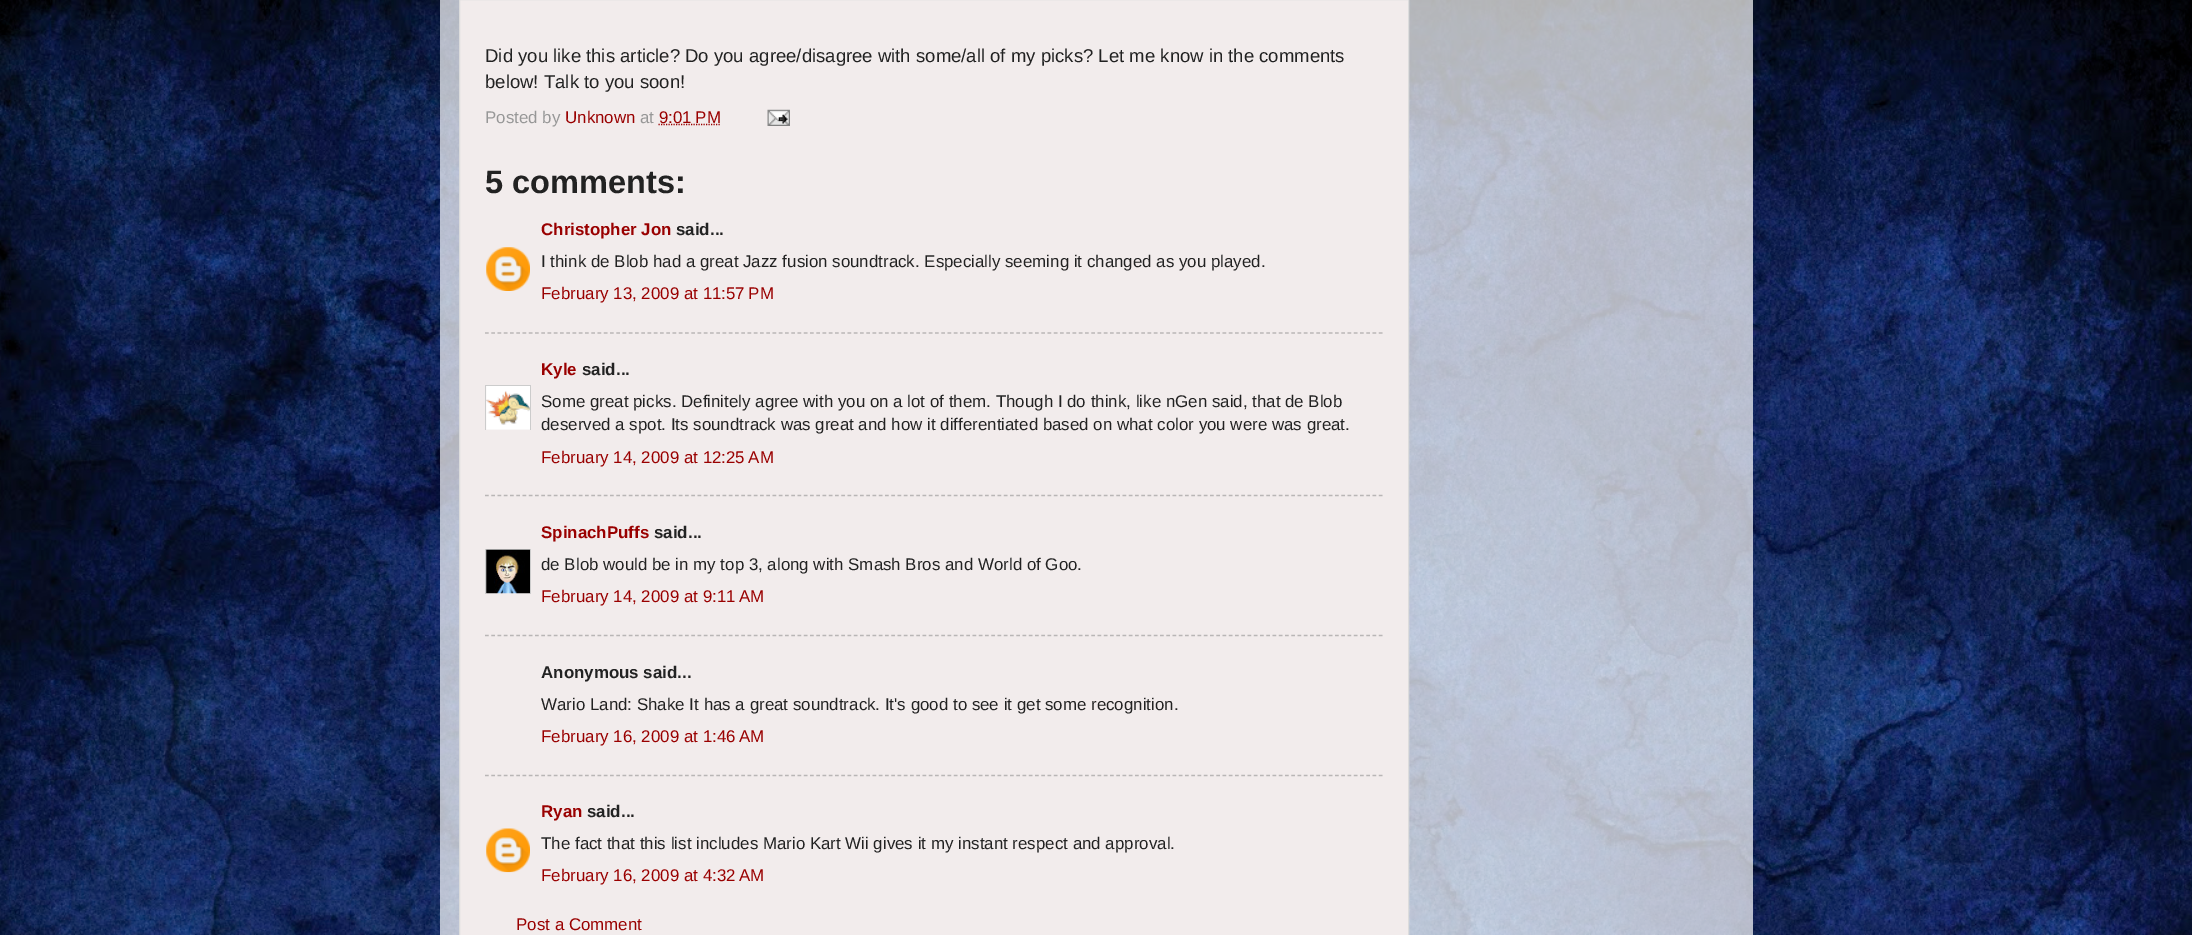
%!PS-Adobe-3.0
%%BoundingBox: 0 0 2192 935
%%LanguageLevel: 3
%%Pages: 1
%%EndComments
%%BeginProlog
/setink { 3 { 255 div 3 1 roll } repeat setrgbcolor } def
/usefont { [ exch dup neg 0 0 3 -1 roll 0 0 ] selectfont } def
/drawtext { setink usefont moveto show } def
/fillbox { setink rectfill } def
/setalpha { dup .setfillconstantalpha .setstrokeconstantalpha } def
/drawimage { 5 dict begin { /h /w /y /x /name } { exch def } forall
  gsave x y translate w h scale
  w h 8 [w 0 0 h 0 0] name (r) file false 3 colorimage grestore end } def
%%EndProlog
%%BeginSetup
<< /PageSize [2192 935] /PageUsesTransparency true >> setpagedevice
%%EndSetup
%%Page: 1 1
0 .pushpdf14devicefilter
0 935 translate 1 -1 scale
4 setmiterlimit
0 0 2192 935 255 255 255 fillbox
(assets/img1.rgb) 0 0 2192 935 drawimage
0.7 setalpha
440 0 1313 935 255 255 255 fillbox
1 setalpha
242 236 236 setink
459.5 -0.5 moveto 1408.5 -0.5 lineto 1408.5 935.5 lineto 459.5 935.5 lineto closepath gsave fill grestore
220 220 220 setink
stroke
(Did you like this article? Do you agree/disagree with some/all of my picks? Let me know in the comments) 485 62 /LiberationSans-Regular 18.55 34 34 34 drawtext
(below! Talk to you soon!) 485 88 /LiberationSans-Regular 18.55 34 34 34 drawtext
(Posted by) 485 123 /LiberationSans-Regular 16.9 151 151 151 drawtext
(Unknown) 565 123 /LiberationSans-Regular 16.9 153 0 0 drawtext
(at) 640 123 /LiberationSans-Regular 16.9 151 151 151 drawtext
153 0 0 setink
1.2 setlinewidth
[1.25 1.25] 0 setdash
658.5 124.5 moveto 720 124.5 lineto stroke
(9:01 PM) 659 123 /LiberationSans-Regular 16.9 153 0 0 drawtext
(assets/img2.rgb) 767 109 23 17 drawimage
(5 comments:) 485 193 /LiberationSans-Bold 32.5 34 34 34 drawtext
(Christopher Jon) 541 235 /LiberationSans-Bold 16.9 153 0 0 drawtext
(said...) 676 235 /LiberationSans-Bold 16.9 34 34 34 drawtext
(assets/img3.rgb) 486 247 44 44 drawimage
(I think de Blob had a great Jazz fusion soundtrack. Especially seeming it changed as you played.) 541 267 /LiberationSans-Regular 16.9 34 34 34 drawtext
(February 13, 2009 at 11:57 PM) 541 299 /LiberationSans-Regular 16.9 153 0 0 drawtext
185 182 182 setink
[3.75 2.5] 0 setdash
485 333 moveto 1382.5 333 lineto stroke
(Kyle) 541 375 /LiberationSans-Bold 16.9 153 0 0 drawtext
(said...) 582 375 /LiberationSans-Bold 16.9 34 34 34 drawtext
gsave
485 385 46 45 rectclip
204 204 204 setink
1 setlinewidth
[] 0 setdash
485.5 385.5 45 45 rectstroke
grestore
(assets/img4.rgb) 486 386 44 44 drawimage
(Some great picks. Definitely agree with you on a lot of them. Though I do think, like nGen said, that de Blob) 541 407 /LiberationSans-Regular 16.9 34 34 34 drawtext
(deserved a spot. Its soundtrack was great and how it differentiated based on what color you were was great.) 541 430 /LiberationSans-Regular 16.9 34 34 34 drawtext
(February 14, 2009 at 12:25 AM) 541 463 /LiberationSans-Regular 16.9 153 0 0 drawtext
185 182 182 setink
485 495.5 moveto 1382.5 495.5 lineto stroke
(SpinachPuffs) 541 538 /LiberationSans-Bold 16.9 153 0 0 drawtext
(said...) 654 538 /LiberationSans-Bold 16.9 34 34 34 drawtext
gsave
485 549 46 45 rectclip
204 204 204 setink
1 setlinewidth
[] 0 setdash
485.5 549.5 45 45 rectstroke
grestore
(assets/img5.rgb) 486 549 44 45 drawimage
(de Blob would be in my top 3, along with Smash Bros and World of Goo.) 541 570 /LiberationSans-Regular 16.9 34 34 34 drawtext
(February 14, 2009 at 9:11 AM) 541 602 /LiberationSans-Regular 16.9 153 0 0 drawtext
185 182 182 setink
485 635.5 moveto 1382.5 635.5 lineto stroke
(Anonymous said...) 541 678 /LiberationSans-Bold 16.9 34 34 34 drawtext
(Wario Land: Shake It has a great soundtrack. It's good to see it get some recognition.) 541 710 /LiberationSans-Regular 16.9 34 34 34 drawtext
(February 16, 2009 at 1:46 AM) 541 742 /LiberationSans-Regular 16.9 153 0 0 drawtext
185 182 182 setink
485 775.5 moveto 1382.5 775.5 lineto stroke
(Ryan) 541 817 /LiberationSans-Bold 16.9 153 0 0 drawtext
(said...) 587 817 /LiberationSans-Bold 16.9 34 34 34 drawtext
(assets/img6.rgb) 486 828 44 45 drawimage
(The fact that this list includes Mario Kart Wii gives it my instant respect and approval.) 541 849 /LiberationSans-Regular 16.9 34 34 34 drawtext
(February 16, 2009 at 4:32 AM) 541 881 /LiberationSans-Regular 16.9 153 0 0 drawtext
(Post a Comment) 516 930 /LiberationSans-Regular 16.9 153 0 0 drawtext
.poppdf14devicefilter showpage
%%EOF
